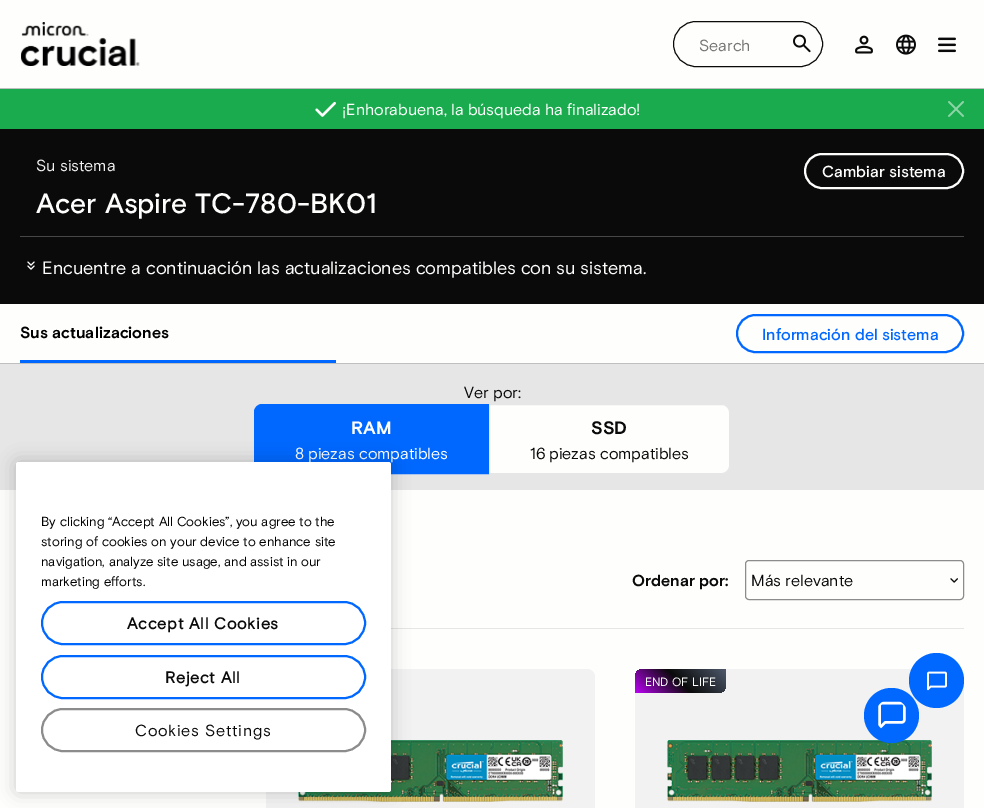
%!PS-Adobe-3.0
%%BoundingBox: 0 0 984 808
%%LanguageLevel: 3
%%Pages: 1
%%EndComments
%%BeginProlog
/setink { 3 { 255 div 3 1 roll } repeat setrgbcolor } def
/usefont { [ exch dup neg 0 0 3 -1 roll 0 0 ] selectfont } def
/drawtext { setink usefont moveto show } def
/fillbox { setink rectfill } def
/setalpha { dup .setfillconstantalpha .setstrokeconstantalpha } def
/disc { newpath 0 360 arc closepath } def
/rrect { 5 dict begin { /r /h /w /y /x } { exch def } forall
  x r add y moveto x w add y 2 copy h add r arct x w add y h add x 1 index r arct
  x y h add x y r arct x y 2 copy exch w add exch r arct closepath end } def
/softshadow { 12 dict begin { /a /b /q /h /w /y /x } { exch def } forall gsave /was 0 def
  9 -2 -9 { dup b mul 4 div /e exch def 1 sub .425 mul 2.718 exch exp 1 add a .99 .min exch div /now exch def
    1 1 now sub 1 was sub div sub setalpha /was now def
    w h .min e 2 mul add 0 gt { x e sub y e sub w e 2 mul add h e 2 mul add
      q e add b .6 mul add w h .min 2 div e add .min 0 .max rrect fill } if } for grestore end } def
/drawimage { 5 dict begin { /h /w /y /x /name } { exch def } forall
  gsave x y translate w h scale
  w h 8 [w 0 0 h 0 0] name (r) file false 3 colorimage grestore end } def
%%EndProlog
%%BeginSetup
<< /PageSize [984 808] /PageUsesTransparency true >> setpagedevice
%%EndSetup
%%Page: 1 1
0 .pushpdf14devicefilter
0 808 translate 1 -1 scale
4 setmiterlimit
0 0 984 808 254 254 253 fillbox
0 88 984 1 191 191 191 fillbox
(assets/img1.rgb) 21 22 119 44 drawimage
10 10 10 setink
673.5 21.5 149 45 22.5 rrect stroke
(Search) 699 51 /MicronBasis-Regular 16 117 117 117 drawtext
(assets/img2.rgb) 793 34 18 19 drawimage
(assets/img3.rgb) 855 35 18 19 drawimage
(assets/img4.rgb) 896 34 20 21 drawimage
(assets/img5.rgb) 938 37 18 16 drawimage
0 89 984 40 26 171 79 fillbox
(assets/img6.rgb) 315 101 21 16 drawimage
(¡Enhorabuena, la búsqueda ha finalizado!) 342 115 /MicronBasis-Regular 16 254 254 253 drawtext
(assets/img7.rgb) 948 101 16 16 drawimage
0 129 984 175 10 10 10 fillbox
(Su sistema) 36 171 /MicronBasis-Regular 16 242 242 242 drawtext
(Acer Aspire TC-780-BK01) 36 213 /MicronBasis-Medium 28 254 254 253 drawtext
2 setlinewidth
805 154 158 34 17 rrect stroke
(Cambiar sistema) 822 177 /MicronBasis-Medium 16 254 254 253 drawtext
20 236 944 1 71 71 71 fillbox
(assets/img8.rgb) 27 261 8 9 drawimage
(Encuentre a continuación las actualizaciones compatibles con su sistema.) 42 274 /MicronBasis-Regular 18 254 254 253 drawtext
0 363 984 1 191 191 191 fillbox
20 360 316 3 0 104 255 fillbox
(Sus actualizaciones) 20 338 /MicronBasis-Bold 16 0 0 0 drawtext
0 104 255 setink
737 315 226 37 18.5 rrect stroke
(Información del sistema) 762 340 /MicronBasis-Medium 16 0 104 255 drawtext
0 364 984 126 230 230 230 fillbox
(Ver por:) 464 398 /MicronBasis-Regular 16 10 10 10 drawtext
0 104 255 setink
262 404.5 moveto 488.5 404.5 lineto 488.5 473.5 lineto 262 473.5 lineto 258 473.5 254.5 470 254.5 466 curveto 254.5 412 lineto 254.5 408 258 404.5 262 404.5 curveto closepath gsave fill grestore
1 setlinewidth
stroke
(RAM) 351 434 /MicronBasis-Bold 18 254 254 253 drawtext
(8) 295 459 /MicronBasis-Regular 16 254 254 253 drawtext
(piezas compatibles) 308 459 /MicronBasis-Regular 16 254 254 253 drawtext
489.5 404.5 moveto 722 404.5 lineto 726 404.5 729.5 408 729.5 412 curveto 729.5 466 lineto 729.5 470 726 473.5 722 473.5 curveto 489.5 473.5 lineto closepath gsave fill grestore
230 230 230 setink
stroke
(SSD) 591 434 /MicronBasis-Bold 18 10 10 10 drawtext
(16) 530 459 /MicronBasis-Regular 16 10 10 10 drawtext
(piezas compatibles) 549 459 /MicronBasis-Regular 16 10 10 10 drawtext
391 628 573 1 230 230 230 fillbox
(Ordenar por:) 632 586 /MicronBasis-Bold 16 10 10 10 drawtext
140 140 140 setink
745.5 560.5 218 39 3.5 rrect stroke
(Más relevante) 751 586 /MicronBasis-Regular 16 10 10 10 drawtext
(assets/img9.rgb) 950 578 8 5 drawimage
242 242 242 setink
266 669 329 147 8 rrect fill
(assets/img10.rgb) 298 740 265 62 drawimage
635 669 329 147 8 rrect fill
gsave 643 669 moveto 726 669 lineto 726 685 lineto 726 689.5 722.5 693 718 693 curveto 635 693 lineto 635 677 lineto 635 672.5 638.5 669 643 669 curveto closepath clip newpath
<< /ShadingType 2 /ColorSpace /DeviceRGB /Coords [709 652 652 710] /Extend [true true] /Function << /FunctionType 3 /Domain [0 1] /Functions [<< /FunctionType 2 /Domain [0 1] /C0 [0.31 0.353 0.424] /C1 [0.039 0.039 0.039] /N 1 >> << /FunctionType 2 /Domain [0 1] /C0 [0.039 0.039 0.039] /C1 [0.741 0.012 0.969] /N 1 >>] /Bounds [0.51] /Encode [0 1 0 1] >> >> shfill grestore
(END OF LIFE) 645 686 /MicronBasis-Regular 12 254 254 253 drawtext
(assets/img10.rgb) 667 740 265 62 drawimage
(assets/img12.rgb) 916 661 2 2 drawimage
0 104 255 setink
936.5 680.5 27.5 disc fill
(assets/img11.rgb) 927 671 20 20 drawimage
891.5 715.5 27.5 disc fill
(assets/img13.rgb) 878 701 28 28 drawimage
0 0 0 setink
16 462 375 330 2.5 9 0.2 softshadow
255 255 255 setink
16 462 375 330 2.5 rrect fill
(By clicking “Accept All Cookies”, you agree to the) 41 526 /MicronBasis-Regular 13.1 0 0 0 drawtext
(storing of cookies on your device to enhance site) 41 546 /MicronBasis-Regular 13.1 0 0 0 drawtext
(navigation, analyze site usage, and assist in our) 41 566 /MicronBasis-Regular 13.1 0 0 0 drawtext
(marketing efforts.) 41 586 /MicronBasis-Regular 13.1 0 0 0 drawtext
0 104 255 setink
2 setlinewidth
42 602 323 42 21 rrect stroke
/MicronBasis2-Bold 16 usefont
10 10 10 setink
127 629 moveto 0.75 0 (Accept All Cookies) ashow
0 104 255 setink
42 656 323 42 21 rrect stroke
10 10 10 setink
165 683 moveto 0.75 0 (Reject All) ashow
140 140 140 setink
42 709 323 42 21 rrect stroke
/MicronBasis-Regular 16 usefont
10 10 10 setink
135 736 moveto 0.75 0 (Cookies Settings) ashow
.poppdf14devicefilter showpage
%%EOF
